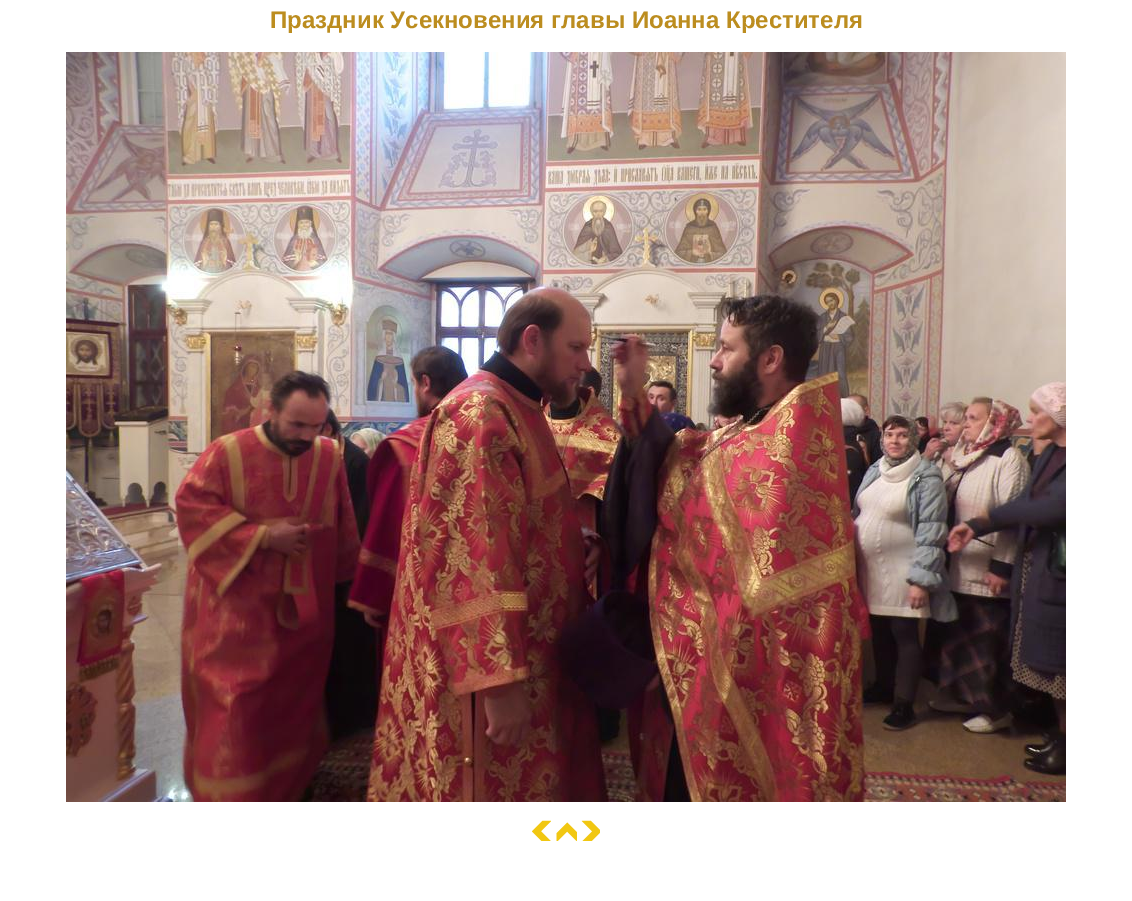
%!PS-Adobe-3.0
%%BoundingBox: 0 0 1132 901
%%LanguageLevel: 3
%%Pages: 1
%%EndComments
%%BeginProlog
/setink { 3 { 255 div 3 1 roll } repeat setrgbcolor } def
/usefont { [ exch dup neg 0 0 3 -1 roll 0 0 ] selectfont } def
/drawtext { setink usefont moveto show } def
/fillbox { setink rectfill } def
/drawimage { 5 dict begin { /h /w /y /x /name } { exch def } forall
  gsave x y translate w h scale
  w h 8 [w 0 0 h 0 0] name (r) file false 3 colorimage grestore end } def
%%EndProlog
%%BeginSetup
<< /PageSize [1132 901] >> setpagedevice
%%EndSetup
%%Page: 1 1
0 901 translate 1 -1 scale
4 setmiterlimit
0 0 1132 901 255 255 255 fillbox
(Праздник Усекновения главы Иоанна Крестителя) 270 28 /LiberationSans-Bold 24 188 141 31 drawtext
(assets/img1.rgb) 66 52 1000 750 drawimage
(assets/img2.rgb) 532 820 19 21 drawimage
(assets/img3.rgb) 556 822 21 19 drawimage
(assets/img4.rgb) 581 820 19 21 drawimage
showpage
%%EOF
